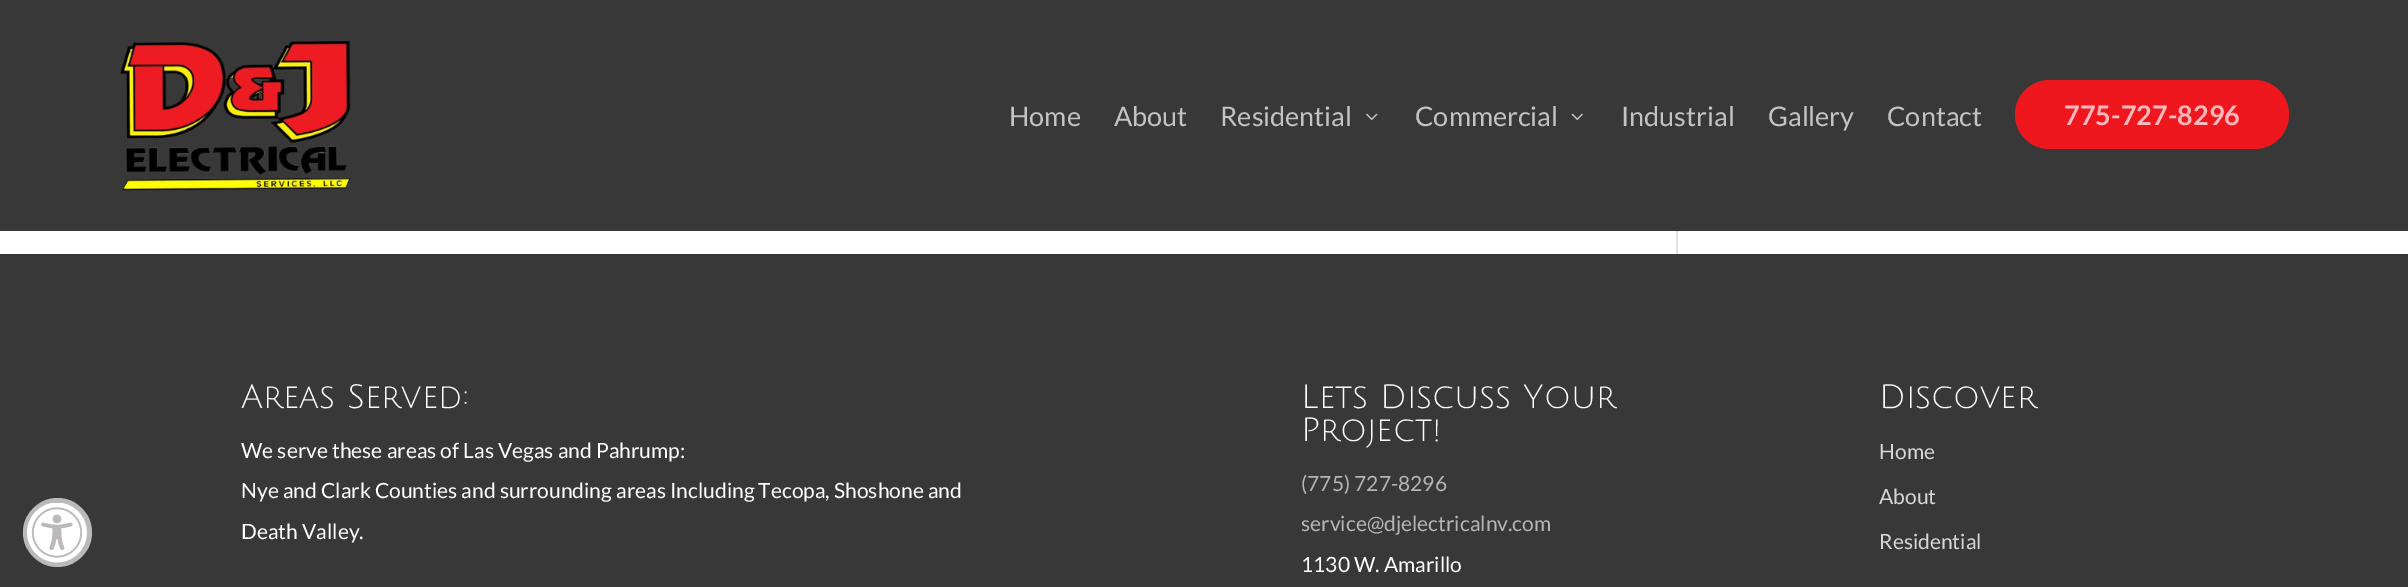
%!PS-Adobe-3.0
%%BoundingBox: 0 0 2408 587
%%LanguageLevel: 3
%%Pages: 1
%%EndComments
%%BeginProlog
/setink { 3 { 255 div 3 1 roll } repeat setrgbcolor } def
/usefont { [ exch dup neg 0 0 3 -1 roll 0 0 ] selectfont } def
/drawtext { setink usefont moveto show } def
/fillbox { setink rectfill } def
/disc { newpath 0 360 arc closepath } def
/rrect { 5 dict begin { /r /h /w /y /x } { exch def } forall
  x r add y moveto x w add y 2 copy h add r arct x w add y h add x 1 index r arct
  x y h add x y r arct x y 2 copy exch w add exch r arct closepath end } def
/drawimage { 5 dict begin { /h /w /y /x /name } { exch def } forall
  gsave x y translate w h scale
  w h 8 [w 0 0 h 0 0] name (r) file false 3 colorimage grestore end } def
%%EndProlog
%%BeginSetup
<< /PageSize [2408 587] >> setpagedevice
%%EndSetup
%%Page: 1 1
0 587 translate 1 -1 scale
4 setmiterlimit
0 0 2408 587 255 255 255 fillbox
0 254 2408 333 56 56 56 fillbox
187 185 185 setink
57.5 532.5 34.5 disc fill
(assets/img1.rgb) 27 503 60 60 drawimage
0 0 2408 231 56 56 56 fillbox
(assets/img2.rgb) 120 41 231 150 drawimage
(Home) 1009 126 /Lato-Regular 27 195 195 195 drawtext
(About) 1114 126 /Lato-Regular 27 195 195 195 drawtext
(Residential) 1220 126 /Lato-Regular 27 195 195 195 drawtext
(assets/img3.rgb) 1366 113 12 7 drawimage
(Commercial) 1415 126 /Lato-Regular 27 195 195 195 drawtext
(assets/img4.rgb) 1571 113 12 7 drawimage
(Industrial) 1621 126 /Lato-Regular 27 195 195 195 drawtext
(Gallery) 1768 126 /Lato-Regular 27 195 195 195 drawtext
(Contact) 1887 126 /Lato-Regular 27 195 195 195 drawtext
239 23 30 setink
2015 80 274 69 34.5 rrect fill
(775-727-8296) 2064 125 /Lato-Bold 27 250 185 188 drawtext
1676 231 2 23 226 226 226 fillbox
(Areas Served:) 241 408 /JuliusSansOne-Regular 33 253 252 249 drawtext
(We serve these areas of Las Vegas and Pahrump:) 241 458 /Lato-Regular 21 255 255 255 drawtext
(Nye and Clark Counties and surrounding areas Including Tecopa, Shoshone and) 241 498 /Lato-Regular 21 255 255 255 drawtext
(Death Valley.) 241 539 /Lato-Regular 21 255 255 255 drawtext
(Lets Discuss Your) 1301 408 /JuliusSansOne-Regular 33 253 252 249 drawtext
(Project!) 1301 441 /JuliusSansOne-Regular 33 253 252 249 drawtext
(\(775\) 727-8296) 1301 491 /Lato-Regular 21 182 182 182 drawtext
(service@djelectricalnv.com) 1301 531 /Lato-Regular 21 182 182 182 drawtext
(1130 W. Amarillo) 1301 572 /Lato-Regular 21 255 255 255 drawtext
(Discover) 1879 408 /JuliusSansOne-Regular 33 253 252 249 drawtext
(Home) 1879 459 /Lato-Regular 21 215 215 215 drawtext
(About) 1879 504 /Lato-Regular 21 215 215 215 drawtext
(Residential) 1879 549 /Lato-Regular 21 215 215 215 drawtext
showpage
%%EOF
